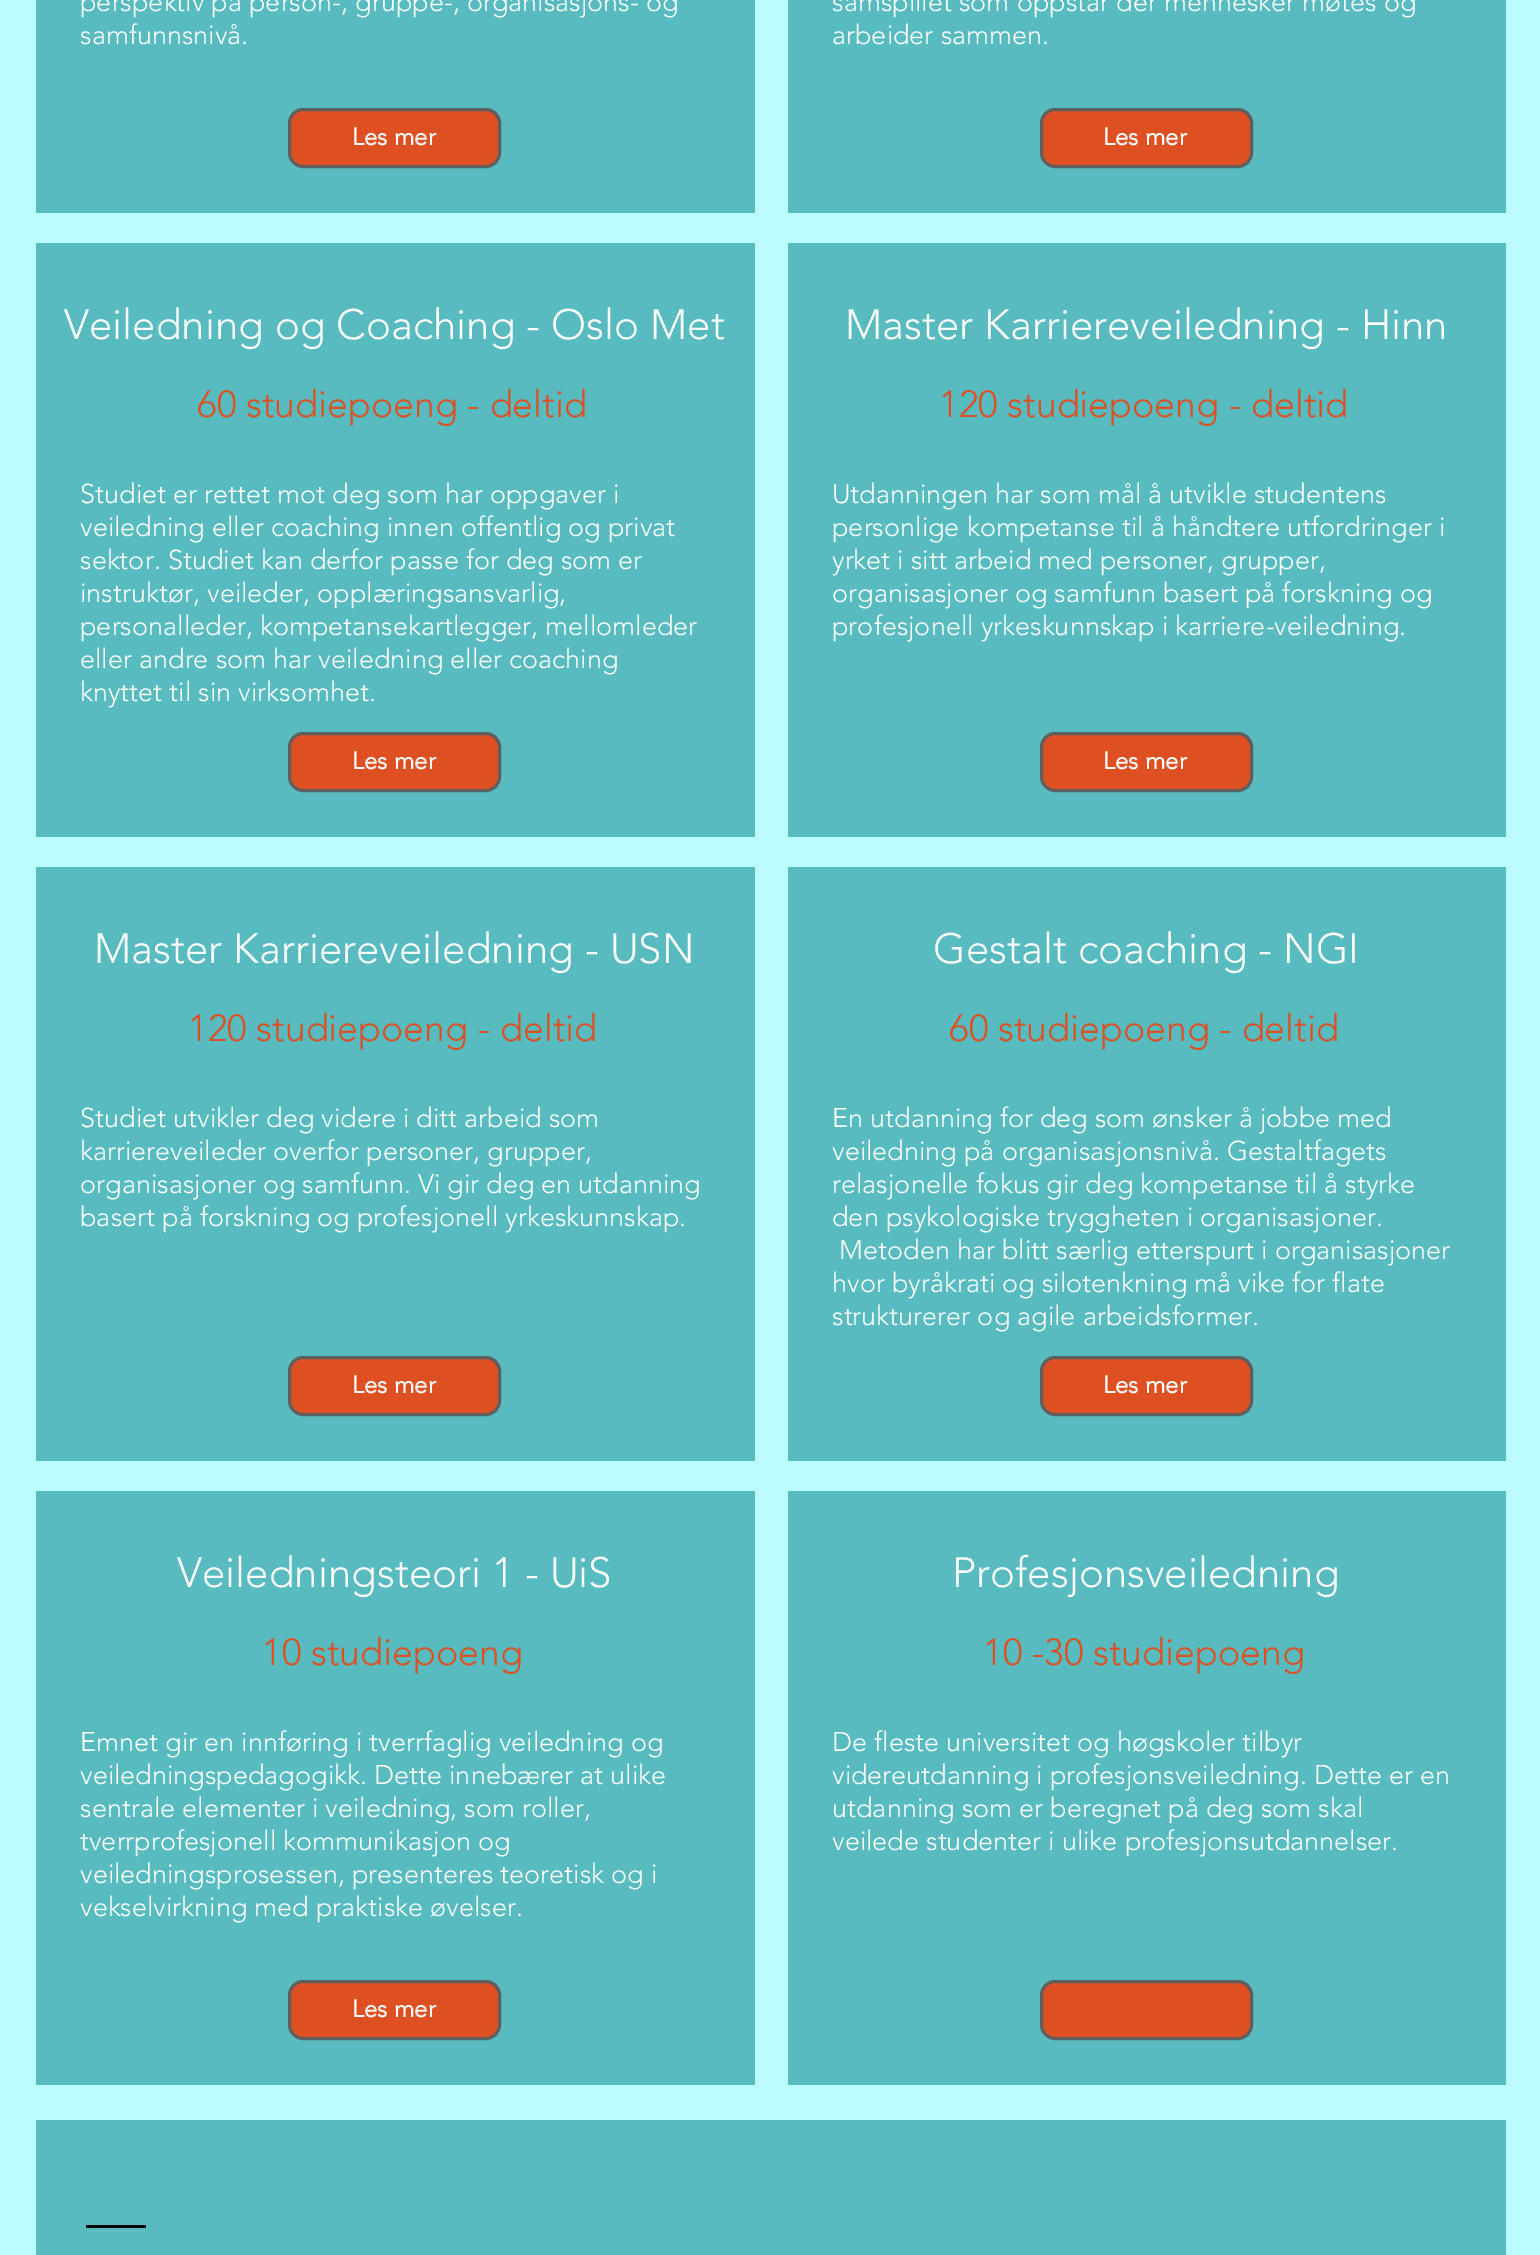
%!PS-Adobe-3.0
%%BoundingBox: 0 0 1540 2255
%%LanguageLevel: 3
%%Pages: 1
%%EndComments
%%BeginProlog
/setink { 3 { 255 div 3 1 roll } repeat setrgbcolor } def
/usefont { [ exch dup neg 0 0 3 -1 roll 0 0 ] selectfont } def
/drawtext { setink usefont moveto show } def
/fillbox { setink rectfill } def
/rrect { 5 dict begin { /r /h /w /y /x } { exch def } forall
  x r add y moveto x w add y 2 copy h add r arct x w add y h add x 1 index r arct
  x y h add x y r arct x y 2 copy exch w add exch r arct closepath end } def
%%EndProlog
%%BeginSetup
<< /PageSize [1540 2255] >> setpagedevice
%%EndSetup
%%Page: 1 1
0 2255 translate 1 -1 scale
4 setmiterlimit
0 0 1540 2255 186 252 255 fillbox
36 0 719 213 87 187 191 fillbox
(perspektiv på person-, gruppe-, organisasjons- og) 80 11 /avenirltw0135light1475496-Light 27 255 255 255 drawtext
(samfunnsnivå.) 80 44 /avenirltw0135light1475496-Light 27 255 255 255 drawtext
222 80 33 setink
289.5 109.5 210 57 13.5 rrect gsave fill grestore
96 94 94 setink
3 setlinewidth
stroke
(Les mer) 352 145 /avenirltw0135light1475496-Bold 24 255 255 255 drawtext
36 243 719 594 87 187 191 fillbox
(Veiledning og Coaching - Oslo Met) 64 339 /avenirltw0135light1475496-Light 42 255 255 255 drawtext
(60 studiepoeng - deltid) 197 417 /avenirltw0135light1475496-Light 37.5 222 80 33 drawtext
(Studiet er rettet mot deg som har oppgaver i) 80 503 /avenirltw0135light1475496-Light 27 255 255 255 drawtext
(veiledning eller coaching innen offentlig og privat) 80 536 /avenirltw0135light1475496-Light 27 255 255 255 drawtext
(sektor. Studiet kan derfor passe for deg som er) 80 569 /avenirltw0135light1475496-Light 27 255 255 255 drawtext
(instruktør, veileder, opplæringsansvarlig,) 80 602 /avenirltw0135light1475496-Light 27 255 255 255 drawtext
(personalleder, kompetansekartlegger, mellomleder) 80 635 /avenirltw0135light1475496-Light 27 255 255 255 drawtext
(eller andre som har veiledning eller coaching) 80 668 /avenirltw0135light1475496-Light 27 255 255 255 drawtext
(knyttet til sin virksomhet.) 80 701 /avenirltw0135light1475496-Light 27 255 255 255 drawtext
222 80 33 setink
289.5 733.5 210 57 13.5 rrect gsave fill grestore
96 94 94 setink
stroke
(Les mer) 352 769 /avenirltw0135light1475496-Bold 24 255 255 255 drawtext
36 867 719 594 87 187 191 fillbox
(Master Karriereveiledning - USN) 94 963 /avenirltw0135light1475496-Light 42 255 255 255 drawtext
(120 studiepoeng - deltid) 188 1041 /avenirltw0135light1475496-Light 37.5 222 80 33 drawtext
(Studiet utvikler deg videre i ditt arbeid som) 80 1127 /avenirltw0135light1475496-Light 27 255 255 255 drawtext
(karriereveileder overfor personer, grupper,) 80 1160 /avenirltw0135light1475496-Light 27 255 255 255 drawtext
(organisasjoner og samfunn. Vi gir deg en utdanning) 80 1193 /avenirltw0135light1475496-Light 27 255 255 255 drawtext
(basert på forskning og profesjonell yrkeskunnskap.) 80 1226 /avenirltw0135light1475496-Light 27 255 255 255 drawtext
222 80 33 setink
289.5 1357.5 210 57 13.5 rrect gsave fill grestore
96 94 94 setink
stroke
(Les mer) 352 1393 /avenirltw0135light1475496-Bold 24 255 255 255 drawtext
36 1491 719 594 87 187 191 fillbox
(Veiledningsteori 1 - UiS) 177 1587 /avenirltw0135light1475496-Light 42 255 255 255 drawtext
(10 studiepoeng) 262 1665 /avenirltw0135light1475496-Light 37.5 222 80 33 drawtext
(Emnet gir en innføring i tverrfaglig veiledning og) 80 1751 /avenirltw0135light1475496-Light 27 255 255 255 drawtext
(veiledningspedagogikk. Dette innebærer at ulike) 80 1784 /avenirltw0135light1475496-Light 27 255 255 255 drawtext
(sentrale elementer i veiledning, som roller,) 80 1817 /avenirltw0135light1475496-Light 27 255 255 255 drawtext
(tverrprofesjonell kommunikasjon og) 80 1850 /avenirltw0135light1475496-Light 27 255 255 255 drawtext
(veiledningsprosessen, presenteres teoretisk og i) 80 1883 /avenirltw0135light1475496-Light 27 255 255 255 drawtext
(vekselvirkning med praktiske øvelser.) 80 1916 /avenirltw0135light1475496-Light 27 255 255 255 drawtext
222 80 33 setink
289.5 1981.5 210 57 13.5 rrect gsave fill grestore
96 94 94 setink
stroke
(Les mer) 352 2017 /avenirltw0135light1475496-Bold 24 255 255 255 drawtext
788 0 718 213 87 187 191 fillbox
(samspillet som oppstår der mennesker møtes og) 832 11 /avenirltw0135light1475496-Light 27 255 255 255 drawtext
(arbeider sammen.) 832 44 /avenirltw0135light1475496-Light 27 255 255 255 drawtext
222 80 33 setink
1041.5 109.5 210 57 13.5 rrect gsave fill grestore
96 94 94 setink
stroke
(Les mer) 1103 145 /avenirltw0135light1475496-Bold 24 255 255 255 drawtext
788 243 718 594 87 187 191 fillbox
(Master Karriereveiledning - Hinn) 845 339 /avenirltw0135light1475496-Light 42 255 255 255 drawtext
(120 studiepoeng - deltid) 939 417 /avenirltw0135light1475496-Light 37.5 222 80 33 drawtext
(Utdanningen har som mål å utvikle studentens) 832 503 /avenirltw0135light1475496-Light 27 255 255 255 drawtext
(personlige kompetanse til å håndtere utfordringer i) 832 536 /avenirltw0135light1475496-Light 27 255 255 255 drawtext
(yrket i sitt arbeid med personer, grupper,) 832 569 /avenirltw0135light1475496-Light 27 255 255 255 drawtext
(organisasjoner og samfunn basert på forskning og) 832 602 /avenirltw0135light1475496-Light 27 255 255 255 drawtext
(profesjonell yrkeskunnskap i karriere-veiledning.) 832 635 /avenirltw0135light1475496-Light 27 255 255 255 drawtext
222 80 33 setink
1041.5 733.5 210 57 13.5 rrect gsave fill grestore
96 94 94 setink
stroke
(Les mer) 1103 769 /avenirltw0135light1475496-Bold 24 255 255 255 drawtext
788 867 718 594 87 187 191 fillbox
(Gestalt coaching - NGI) 933 963 /avenirltw0135light1475496-Light 42 255 255 255 drawtext
(60 studiepoeng - deltid) 949 1041 /avenirltw0135light1475496-Light 37.5 222 80 33 drawtext
(En utdanning for deg som ønsker å jobbe med) 832 1127 /avenirltw0135light1475496-Light 27 255 255 255 drawtext
(veiledning på organisasjonsnivå. Gestaltfagets) 832 1160 /avenirltw0135light1475496-Light 27 255 255 255 drawtext
(relasjonelle fokus gir deg kompetanse til å styrke) 832 1193 /avenirltw0135light1475496-Light 27 255 255 255 drawtext
(den psykologiske tryggheten i organisasjoner.) 832 1226 /avenirltw0135light1475496-Light 27 255 255 255 drawtext
(Metoden har blitt særlig etterspurt i organisasjoner) 839 1259 /avenirltw0135light1475496-Light 27 255 255 255 drawtext
(hvor byråkrati og silotenkning må vike for flate) 832 1292 /avenirltw0135light1475496-Light 27 255 255 255 drawtext
(strukturerer og agile arbeidsformer.) 832 1325 /avenirltw0135light1475496-Light 27 255 255 255 drawtext
222 80 33 setink
1041.5 1357.5 210 57 13.5 rrect gsave fill grestore
96 94 94 setink
stroke
(Les mer) 1103 1393 /avenirltw0135light1475496-Bold 24 255 255 255 drawtext
788 1491 718 594 87 187 191 fillbox
(Profesjonsveiledning) 952 1587 /avenirltw0135light1475496-Light 42 255 255 255 drawtext
(10 -30 studiepoeng) 983 1665 /avenirltw0135light1475496-Light 37.5 222 80 33 drawtext
(De fleste universitet og høgskoler tilbyr) 832 1751 /avenirltw0135light1475496-Light 27 255 255 255 drawtext
(videreutdanning i profesjonsveiledning. Dette er en) 832 1784 /avenirltw0135light1475496-Light 27 255 255 255 drawtext
(utdanning som er beregnet på deg som skal) 832 1817 /avenirltw0135light1475496-Light 27 255 255 255 drawtext
(veilede studenter i ulike profesjonsutdannelser.) 832 1850 /avenirltw0135light1475496-Light 27 255 255 255 drawtext
222 80 33 setink
1041.5 1981.5 210 57 13.5 rrect gsave fill grestore
96 94 94 setink
stroke
36 2120 1470 135 87 187 191 fillbox
86 2225 60 3 0 0 0 fillbox
showpage
%%EOF
